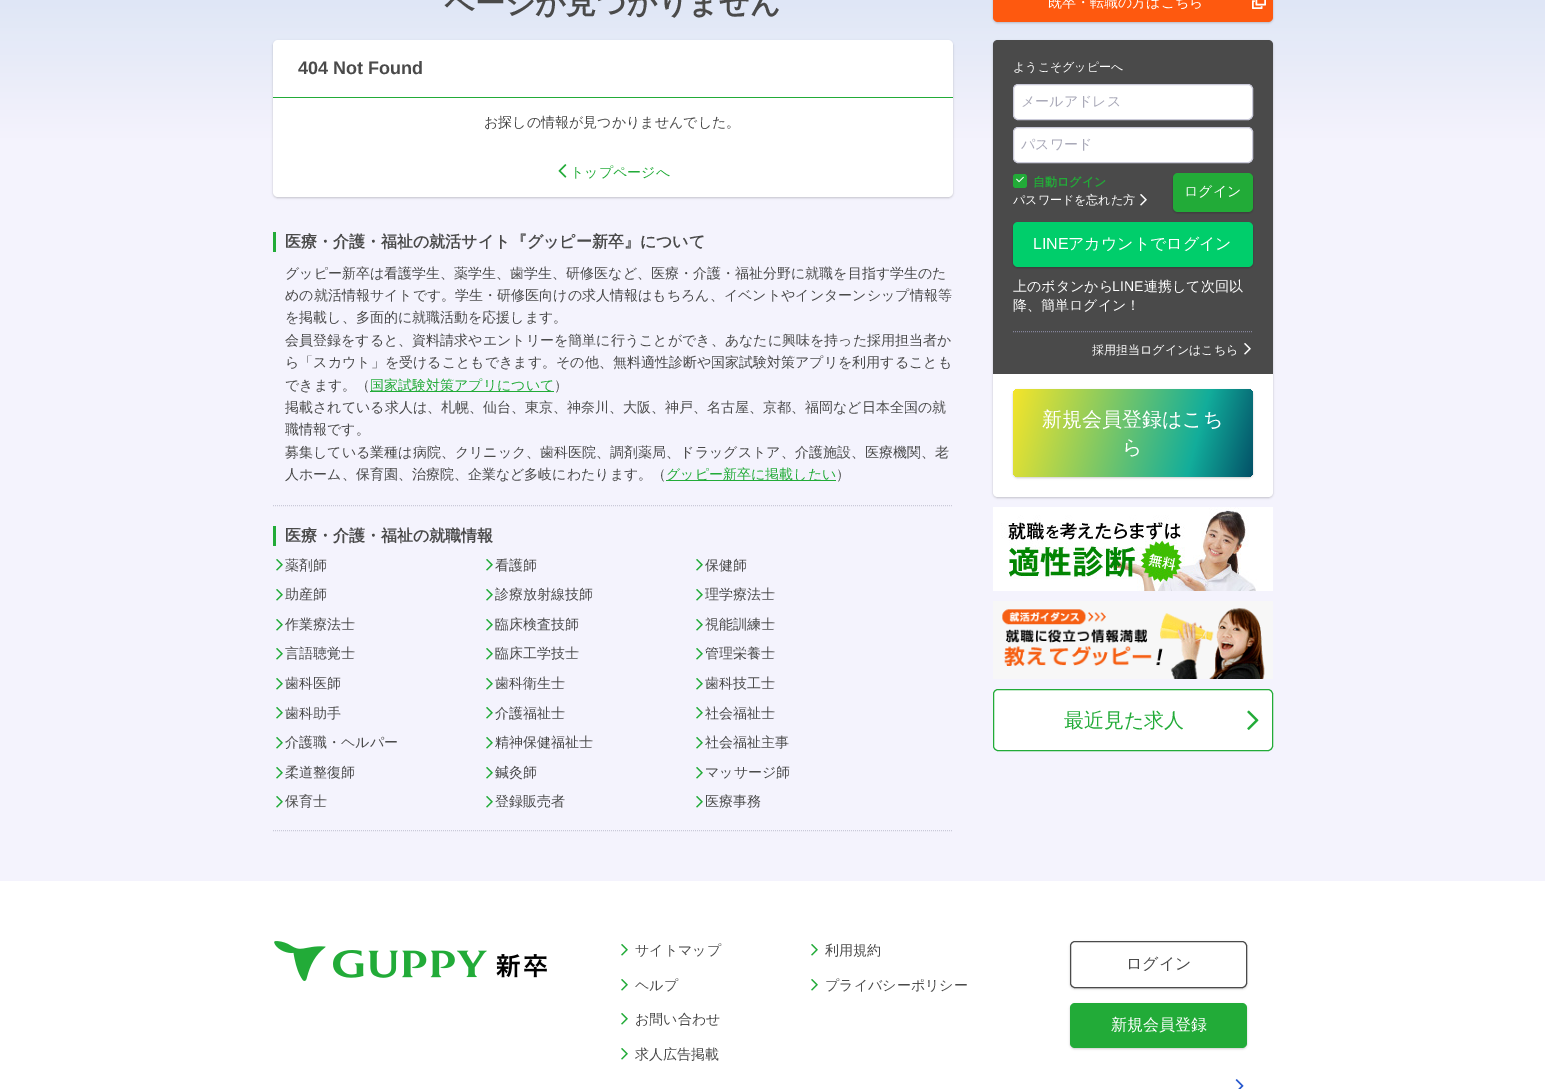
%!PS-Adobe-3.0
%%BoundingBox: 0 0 1545 1089
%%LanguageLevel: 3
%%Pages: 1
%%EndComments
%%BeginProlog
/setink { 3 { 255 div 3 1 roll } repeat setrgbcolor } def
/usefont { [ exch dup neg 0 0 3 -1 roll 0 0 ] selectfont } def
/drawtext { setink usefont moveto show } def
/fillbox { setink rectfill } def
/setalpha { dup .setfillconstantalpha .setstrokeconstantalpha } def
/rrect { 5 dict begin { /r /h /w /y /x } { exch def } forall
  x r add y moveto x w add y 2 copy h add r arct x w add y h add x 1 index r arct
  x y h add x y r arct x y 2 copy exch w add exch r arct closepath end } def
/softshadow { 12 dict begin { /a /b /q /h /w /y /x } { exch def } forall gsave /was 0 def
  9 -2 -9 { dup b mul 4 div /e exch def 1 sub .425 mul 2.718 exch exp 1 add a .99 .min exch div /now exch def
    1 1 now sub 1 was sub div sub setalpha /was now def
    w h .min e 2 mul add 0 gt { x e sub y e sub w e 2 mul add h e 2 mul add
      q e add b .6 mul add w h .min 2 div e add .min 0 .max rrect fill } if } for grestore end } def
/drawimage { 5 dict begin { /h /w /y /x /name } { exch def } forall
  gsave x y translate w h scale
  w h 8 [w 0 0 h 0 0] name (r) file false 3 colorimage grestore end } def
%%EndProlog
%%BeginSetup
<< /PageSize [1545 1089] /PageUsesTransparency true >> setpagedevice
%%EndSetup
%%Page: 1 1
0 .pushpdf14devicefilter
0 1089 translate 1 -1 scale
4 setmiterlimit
0 0 1545 1089 255 255 255 fillbox
gsave 0 0 moveto 1545 0 lineto 1545 881 lineto 0 881 lineto closepath clip newpath
<< /ShadingType 2 /ColorSpace /DeviceRGB /Coords [773 -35 773 881] /Extend [true true] /Function << /FunctionType 3 /Domain [0 1] /Functions [<< /FunctionType 2 /Domain [0 1] /C0 [0.855 0.89 0.961] /C1 [0.89 0.914 0.969] /N 1 >> << /FunctionType 2 /Domain [0 1] /C0 [0.89 0.914 0.969] /C1 [0.957 0.953 0.992] /N 1 >> << /FunctionType 2 /Domain [0 1] /C0 [0.957 0.953 0.992] /C1 [0.957 0.953 0.992] /N 1 >>] /Bounds [0.07 0.19] /Encode [0 1 0 1 0 1] >> >> shfill grestore
(ページが見つかりません) 444 13 /WenQuanYiZenHei-Bold 30 74 74 74 drawtext
0 0 0 setink
273 41 680 157 5 1 0.2 softshadow
255 255 255 setink
273 40 680 157 5 rrect fill
273 97 680 1 34 171 56 fillbox
(404 Not Found) 298 74 /LiberationSans-Bold 18 74 74 74 drawtext
(お探しの情報が見つかりませんでした。) 484 127 /WenQuanYiZenHei-Medium 14 74 74 74 drawtext
(assets/img1.rgb) 558 164 9 14 drawimage
(トップページへ) 570 177 /WenQuanYiZenHei-Medium 14 34 171 56 drawtext
202 202 217 setink
[1 1] 0 setdash
273 505.5 moveto 953 505.5 lineto stroke
273 232 3 20 34 171 56 fillbox
(医療・介護・福祉の就活サイト『グッピー新卒』について) 285 247 /WenQuanYiZenHei-Bold 16 74 74 74 drawtext
(グッピー新卒は看護学生、薬学生、歯学生、研修医など、医療・介護・福祉分野に就職を目指す学生のた) 285 278 /WenQuanYiZenHei-Medium 14 74 74 74 drawtext
(めの就活情報サイトです。学生・研修医向けの求人情報はもちろん、イベントやインターンシップ情報等) 285 300 /WenQuanYiZenHei-Medium 14 74 74 74 drawtext
(を掲載し、多面的に就職活動を応援します。) 285 322 /WenQuanYiZenHei-Medium 14 74 74 74 drawtext
(会員登録をすると、資料請求やエントリーを簡単に行うことができ、あなたに興味を持った採用担当者か) 285 345 /WenQuanYiZenHei-Medium 14 74 74 74 drawtext
(ら「スカウト」を受けることもできます。その他、無料適性診断や国家試験対策アプリを利用することも) 285 367 /WenQuanYiZenHei-Medium 14 74 74 74 drawtext
(できます。（) 285 390 /WenQuanYiZenHei-Medium 14 74 74 74 drawtext
370 391 184 1 34 171 56 fillbox
(国家試験対策アプリについて) 370 390 /WenQuanYiZenHei-Medium 14 34 171 56 drawtext
(）) 554 390 /WenQuanYiZenHei-Medium 14 74 74 74 drawtext
(掲載されている求人は、札幌、仙台、東京、神奈川、大阪、神戸、名古屋、京都、福岡など日本全国の就) 285 412 /WenQuanYiZenHei-Medium 14 74 74 74 drawtext
(職情報です。) 285 434 /WenQuanYiZenHei-Medium 14 74 74 74 drawtext
(募集している業種は病院、クリニック、歯科医院、調剤薬局、ドラッグストア、介護施設、医療機関、老) 285 457 /WenQuanYiZenHei-Medium 14 74 74 74 drawtext
(人ホーム、保育園、治療院、企業など多岐にわたります。（) 285 479 /WenQuanYiZenHei-Medium 14 74 74 74 drawtext
666 480 170 1 34 171 56 fillbox
(グッピー新卒に掲載したい) 666 479 /WenQuanYiZenHei-Medium 14 34 171 56 drawtext
(）) 836 479 /WenQuanYiZenHei-Medium 14 74 74 74 drawtext
202 202 217 setink
273 830.5 moveto 953 830.5 lineto stroke
273 526 3 20 34 171 56 fillbox
(医療・介護・福祉の就職情報) 285 541 /WenQuanYiZenHei-Bold 16 74 74 74 drawtext
(assets/img2.rgb) 276 559 7 12 drawimage
(薬剤師) 285 570 /WenQuanYiZenHei-Medium 14 74 74 74 drawtext
(assets/img2.rgb) 486 559 7 12 drawimage
(看護師) 495 570 /WenQuanYiZenHei-Medium 14 74 74 74 drawtext
(assets/img2.rgb) 696 559 7 12 drawimage
(保健師) 705 570 /WenQuanYiZenHei-Medium 14 74 74 74 drawtext
(assets/img2.rgb) 276 589 7 12 drawimage
(助産師) 285 599 /WenQuanYiZenHei-Medium 14 74 74 74 drawtext
(assets/img2.rgb) 486 589 7 12 drawimage
(診療放射線技師) 495 599 /WenQuanYiZenHei-Medium 14 74 74 74 drawtext
(assets/img2.rgb) 696 589 7 12 drawimage
(理学療法士) 705 599 /WenQuanYiZenHei-Medium 14 74 74 74 drawtext
(assets/img2.rgb) 276 619 7 12 drawimage
(作業療法士) 285 629 /WenQuanYiZenHei-Medium 14 74 74 74 drawtext
(assets/img2.rgb) 486 619 7 12 drawimage
(臨床検査技師) 495 629 /WenQuanYiZenHei-Medium 14 74 74 74 drawtext
(assets/img2.rgb) 696 619 7 12 drawimage
(視能訓練士) 705 629 /WenQuanYiZenHei-Medium 14 74 74 74 drawtext
(assets/img2.rgb) 276 648 7 12 drawimage
(言語聴覚士) 285 658 /WenQuanYiZenHei-Medium 14 74 74 74 drawtext
(assets/img2.rgb) 486 648 7 12 drawimage
(臨床工学技士) 495 658 /WenQuanYiZenHei-Medium 14 74 74 74 drawtext
(assets/img2.rgb) 696 648 7 12 drawimage
(管理栄養士) 705 658 /WenQuanYiZenHei-Medium 14 74 74 74 drawtext
(assets/img2.rgb) 276 678 7 12 drawimage
(歯科医師) 285 688 /WenQuanYiZenHei-Medium 14 74 74 74 drawtext
(assets/img2.rgb) 486 678 7 12 drawimage
(歯科衛生士) 495 688 /WenQuanYiZenHei-Medium 14 74 74 74 drawtext
(assets/img2.rgb) 696 678 7 12 drawimage
(歯科技工士) 705 688 /WenQuanYiZenHei-Medium 14 74 74 74 drawtext
(assets/img2.rgb) 276 707 7 12 drawimage
(歯科助手) 285 718 /WenQuanYiZenHei-Medium 14 74 74 74 drawtext
(assets/img2.rgb) 486 707 7 12 drawimage
(介護福祉士) 495 718 /WenQuanYiZenHei-Medium 14 74 74 74 drawtext
(assets/img2.rgb) 696 707 7 12 drawimage
(社会福祉士) 705 718 /WenQuanYiZenHei-Medium 14 74 74 74 drawtext
(assets/img2.rgb) 276 737 7 12 drawimage
(介護職・ヘルパー) 285 747 /WenQuanYiZenHei-Medium 14 74 74 74 drawtext
(assets/img2.rgb) 486 737 7 12 drawimage
(精神保健福祉士) 495 747 /WenQuanYiZenHei-Medium 14 74 74 74 drawtext
(assets/img2.rgb) 696 737 7 12 drawimage
(社会福祉主事) 705 747 /WenQuanYiZenHei-Medium 14 74 74 74 drawtext
(assets/img2.rgb) 276 767 7 12 drawimage
(柔道整復師) 285 777 /WenQuanYiZenHei-Medium 14 74 74 74 drawtext
(assets/img2.rgb) 486 767 7 12 drawimage
(鍼灸師) 495 777 /WenQuanYiZenHei-Medium 14 74 74 74 drawtext
(assets/img2.rgb) 696 767 7 12 drawimage
(マッサージ師) 705 777 /WenQuanYiZenHei-Medium 14 74 74 74 drawtext
(assets/img2.rgb) 276 796 7 12 drawimage
(保育士) 285 806 /WenQuanYiZenHei-Medium 14 74 74 74 drawtext
(assets/img2.rgb) 486 796 7 12 drawimage
(登録販売者) 495 806 /WenQuanYiZenHei-Medium 14 74 74 74 drawtext
(assets/img2.rgb) 696 796 7 12 drawimage
(医療事務) 705 806 /WenQuanYiZenHei-Medium 14 74 74 74 drawtext
0 0 0 setink
993 -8 280 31 5 1 0.2 softshadow
254 89 15 setink
993 -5 280 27 5 rrect fill
(既卒・転職の方はこちら) 1048 7 /WenQuanYiZenHei-Medium 14 255 255 255 drawtext
(assets/img3.rgb) 1252 0 14 9 drawimage
0 0 0 setink
993 41 280 457 5 1 0.2 softshadow
74 74 74 setink
998 40 moveto 1268 40 lineto 1271 40 1273 42 1273 45 curveto 1273 374 lineto 993 374 lineto 993 45 lineto 993 42 995 40 998 40 curveto closepath fill
132 132 154 setink
1013 331.5 moveto 1253 331.5 lineto stroke
(ようこそグッピーへ) 1013 71 /WenQuanYiZenHei-Medium 12 255 255 255 drawtext
1013.5 84.5 239 35 4.5 rrect gsave fill grestore
202 202 217 setink
[] 0 setdash
stroke
(メールアドレス) 1021 106 /WenQuanYiZenHei-Medium 14 169 169 184 drawtext
255 255 255 setink
1013.5 127.5 239 35 4.5 rrect gsave fill grestore
202 202 217 setink
stroke
(パスワード) 1021 149 /WenQuanYiZenHei-Medium 14 169 169 184 drawtext
34 171 56 setink
1013 174 14 14 3 rrect fill
(assets/img4.rgb) 1016 176 8 7 drawimage
(自動ログイン) 1033 186 /WenQuanYiZenHei-Bold 12 34 171 56 drawtext
(パスワードを忘れた方) 1013 204 /WenQuanYiZenHei-Medium 12 255 255 255 drawtext
(assets/img5.rgb) 1140 194 7 12 drawimage
0 0 0 setink
1173 174 80 39 5 1 0.2 softshadow
34 171 56 setink
1173 173 80 39 5 rrect fill
(ログイン) 1184 196 /WenQuanYiZenHei-Medium 14 255 255 255 drawtext
0 0 0 setink
1013 223 240 45 5 1 0.2 softshadow
0 206 107 setink
1013 222 240 45 5 rrect fill
(LINE) 1033 249 /LiberationSans-Regular 16 255 255 255 drawtext
(アカウントでログイン) 1068 249 /WenQuanYiZenHei-Medium 16 255 255 255 drawtext
(上のボタンから) 1013 291 /WenQuanYiZenHei-Medium 14 255 255 255 drawtext
(LINE) 1112 291 /LiberationSans-Regular 14 255 255 255 drawtext
(連携して次回以) 1144 291 /WenQuanYiZenHei-Medium 14 255 255 255 drawtext
(降、簡単ログイン！) 1013 310 /WenQuanYiZenHei-Medium 14 255 255 255 drawtext
(採用担当ログインはこちら) 1092 354 /WenQuanYiZenHei-Medium 12 255 255 255 drawtext
(assets/img5.rgb) 1244 343 7 12 drawimage
993 374 moveto 1273 374 lineto 1273 492 lineto 1273 495 1271 497 1268 497 curveto 998 497 lineto 995 497 993 495 993 492 curveto closepath fill
0 0 0 setink
1013 390 240 88 5 1 0.2 softshadow
gsave 1013 389 240 88 5 rrect clip newpath
<< /ShadingType 2 /ColorSpace /DeviceRGB /Coords [1256 466 1010 400] /Extend [true true] /Function << /FunctionType 3 /Domain [0 1] /Functions [<< /FunctionType 2 /Domain [0 1] /C0 [0.012 0.314 0.404] /C1 [0.071 0.678 0.608] /N 1 >> << /FunctionType 2 /Domain [0 1] /C0 [0.071 0.678 0.608] /C1 [0.961 0.898 0.165] /N 1 >>] /Bounds [0.25] /Encode [0 1 0 1] >> >> shfill grestore
(新規会員登録はこち) 1042 426 /WenQuanYiZenHei-Medium 20 255 255 255 drawtext
(ら) 1122 454 /WenQuanYiZenHei-Medium 20 255 255 255 drawtext
(assets/img6.rgb) 993 507 280 84 drawimage
(assets/img7.rgb) 993 601 280 78 drawimage
993.5 689.5 279 61 4.5 rrect gsave fill grestore
34 171 56 setink
stroke
(最近見た求人) 1064 727 /WenQuanYiZenHei-Medium 20 34 171 56 drawtext
(assets/img8.rgb) 1247 710 12 20 drawimage
(assets/img9.rgb) 274 941 273 40 drawimage
(assets/img10.rgb) 621 944 7 12 drawimage
(サイトマップ) 635 955 /WenQuanYiZenHei-Medium 14 74 74 74 drawtext
(assets/img10.rgb) 621 979 7 12 drawimage
(ヘルプ) 635 990 /WenQuanYiZenHei-Medium 14 74 74 74 drawtext
(assets/img10.rgb) 621 1013 7 12 drawimage
(お問い合わせ) 635 1024 /WenQuanYiZenHei-Medium 14 74 74 74 drawtext
(assets/img10.rgb) 621 1048 7 12 drawimage
(求人広告掲載) 635 1059 /WenQuanYiZenHei-Medium 14 74 74 74 drawtext
(assets/img10.rgb) 811 944 7 12 drawimage
(利用規約) 825 955 /WenQuanYiZenHei-Medium 14 74 74 74 drawtext
(assets/img10.rgb) 811 979 7 12 drawimage
(プライバシーポリシー) 825 990 /WenQuanYiZenHei-Medium 14 74 74 74 drawtext
gsave
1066 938 moveto 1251 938 lineto 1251 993 lineto 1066 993 lineto closepath 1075 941 moveto 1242 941 lineto 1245 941 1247 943 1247 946 curveto 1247 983 lineto 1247 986 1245 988 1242 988 curveto 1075 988 lineto 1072 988 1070 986 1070 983 curveto 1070 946 lineto 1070 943 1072 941 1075 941 curveto closepath eoclip newpath
0 0 0 setink
1070 942 177 47 5 1 0.2 softshadow
grestore
1070.5 941.5 176 46 4.5 rrect stroke
(ログイン) 1126 969 /WenQuanYiZenHei-Medium 16 74 74 74 drawtext
0 0 0 setink
1070 1004 177 45 5 1 0.2 softshadow
34 171 56 setink
1070 1003 177 45 5 rrect fill
(新規会員登録) 1111 1030 /WenQuanYiZenHei-Medium 16 255 255 255 drawtext
(assets/img11.rgb) 1235 1079 9 10 drawimage
.poppdf14devicefilter showpage
%%EOF
